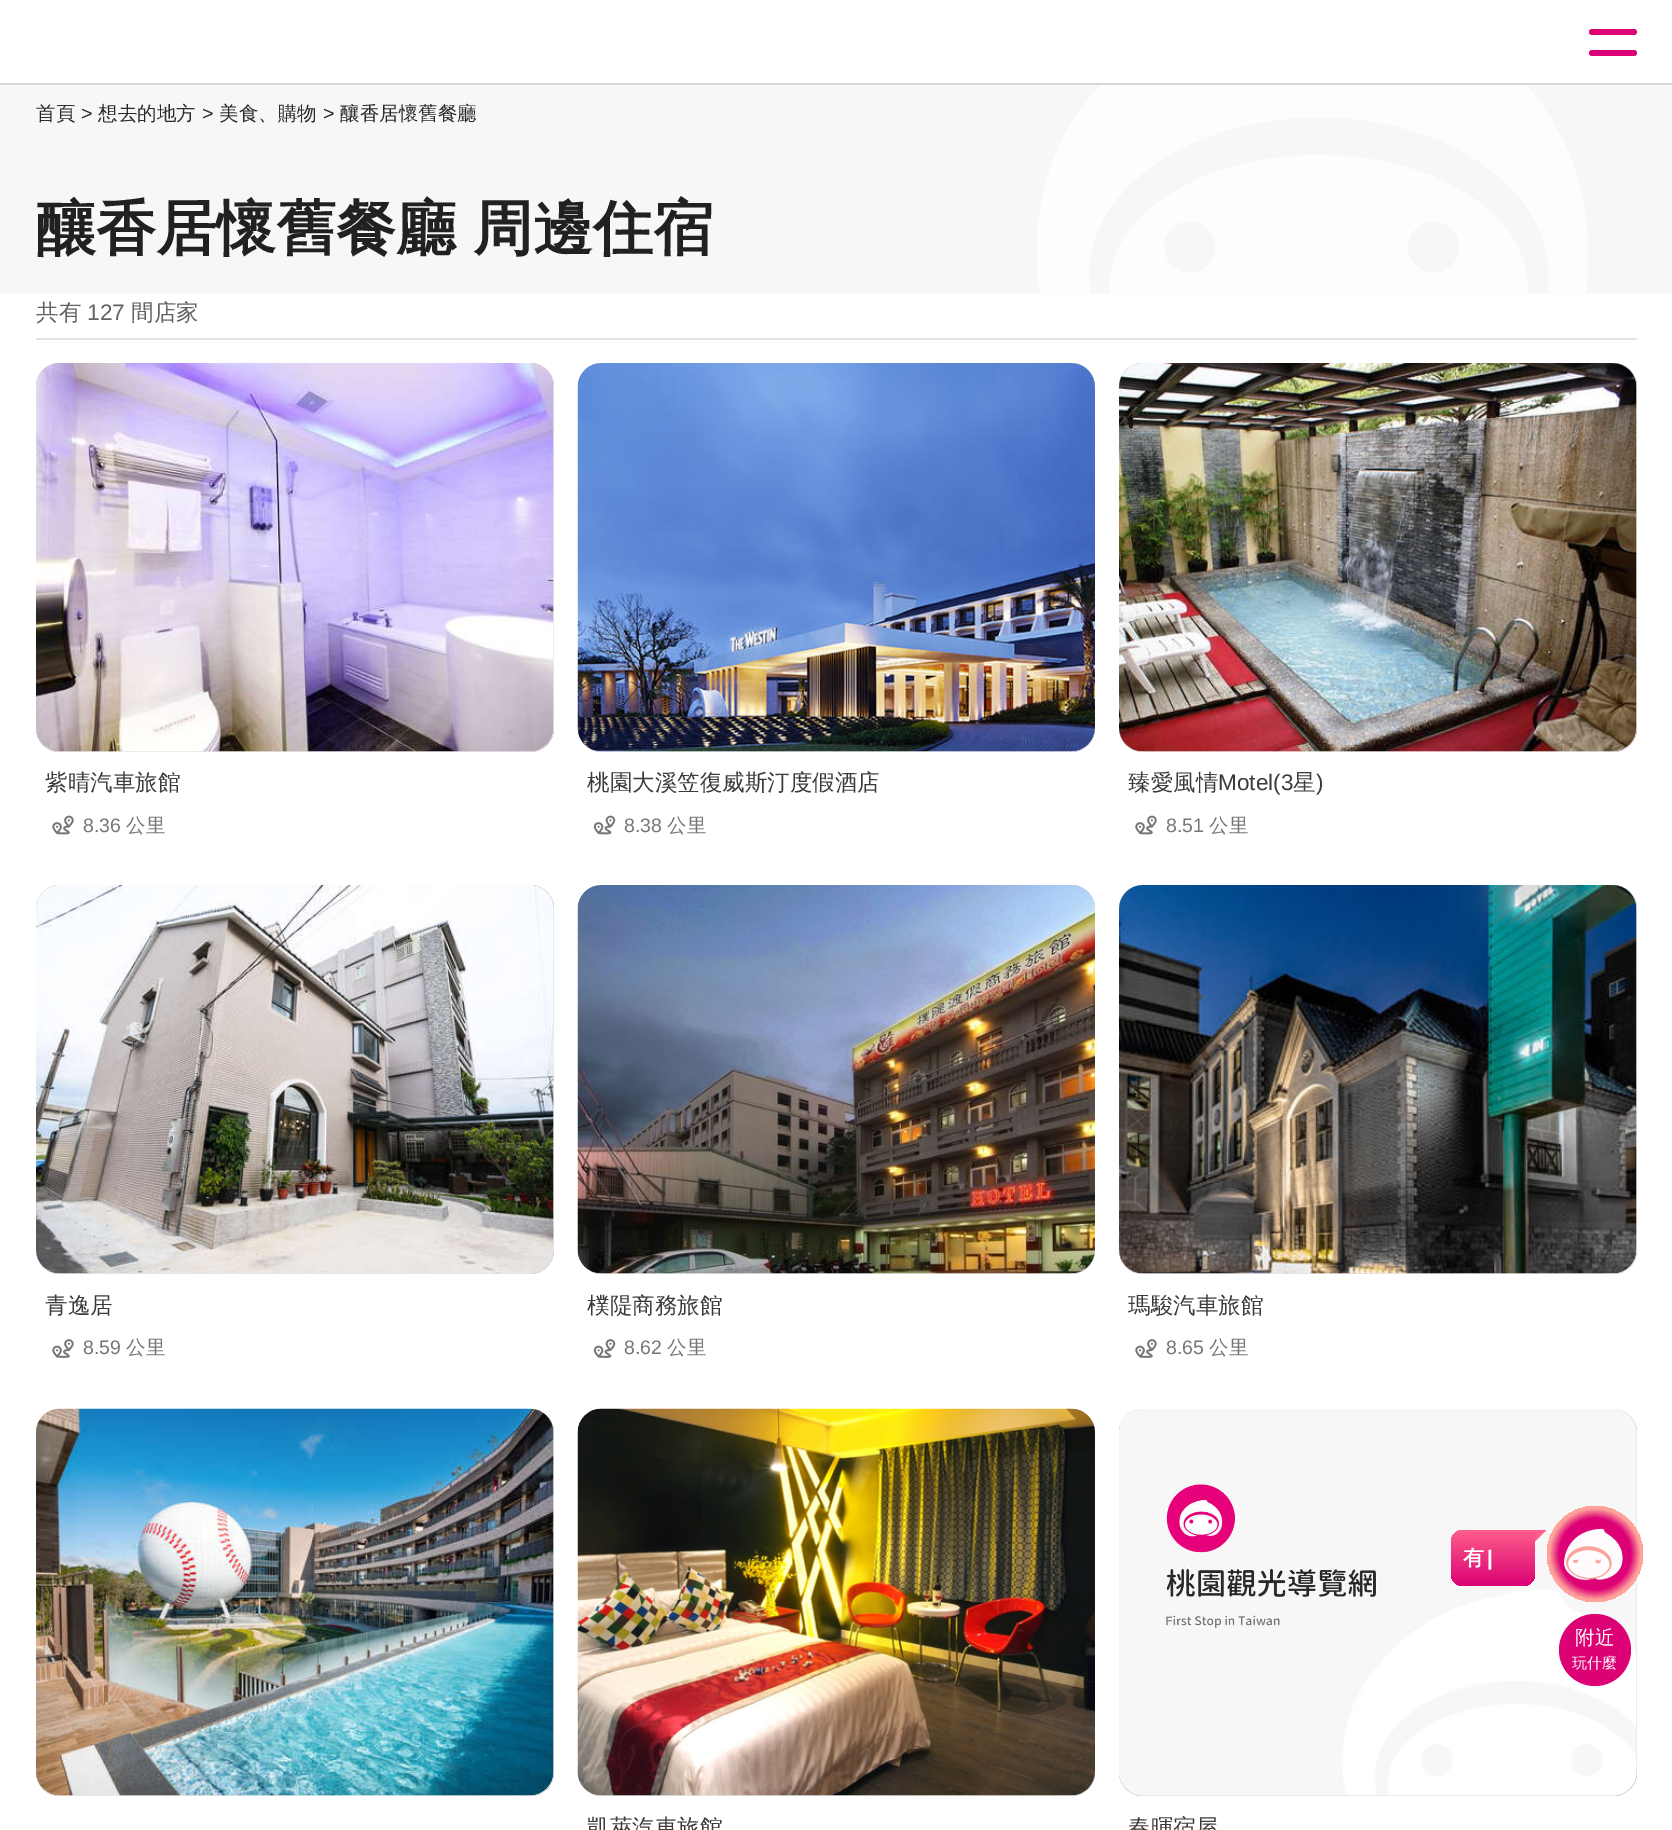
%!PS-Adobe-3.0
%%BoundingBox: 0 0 1672 1830
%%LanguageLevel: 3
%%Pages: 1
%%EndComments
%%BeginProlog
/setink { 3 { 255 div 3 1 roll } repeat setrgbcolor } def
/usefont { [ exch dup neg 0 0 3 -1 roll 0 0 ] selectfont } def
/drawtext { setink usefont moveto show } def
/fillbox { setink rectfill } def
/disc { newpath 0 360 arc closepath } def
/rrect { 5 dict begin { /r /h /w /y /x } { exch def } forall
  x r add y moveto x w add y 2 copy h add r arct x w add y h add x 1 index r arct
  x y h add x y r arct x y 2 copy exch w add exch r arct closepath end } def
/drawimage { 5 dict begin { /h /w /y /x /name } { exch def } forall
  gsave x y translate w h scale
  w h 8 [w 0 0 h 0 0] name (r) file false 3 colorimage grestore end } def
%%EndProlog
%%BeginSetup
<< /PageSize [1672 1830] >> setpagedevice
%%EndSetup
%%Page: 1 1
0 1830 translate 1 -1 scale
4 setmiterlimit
0 0 1672 1830 255 255 255 fillbox
220 1 117 setink
1589 29 48 6 3 rrect fill
1589 50 48 6 3 rrect fill
0 83 1672 2 215 215 215 fillbox
0 85 1672 209 247 247 247 fillbox
(首頁) 36 120 /WenQuanYiZenHei-Medium 19.5 42 42 42 drawtext
(>) 81 120 /LiberationSans-Regular 19.5 42 42 42 drawtext
(想去的地方) 98 120 /WenQuanYiZenHei-Medium 19.5 42 42 42 drawtext
(>) 202 120 /LiberationSans-Regular 19.5 42 42 42 drawtext
(美食、購物) 219 120 /WenQuanYiZenHei-Medium 19.5 42 42 42 drawtext
(>) 323 120 /LiberationSans-Regular 19.5 42 42 42 drawtext
(釀香居懷舊餐廳) 340 120 /WenQuanYiZenHei-Medium 19.5 42 42 42 drawtext
(assets/img1.rgb) 1037 85 551 209 drawimage
/WenQuanYiZenHei-Bold 60 usefont
33 33 33 setink
36 249 moveto -1 0 32 (釀香居懷舊餐廳 周邊住宿) widthshow
36 338 1601 2 227 227 227 fillbox
(共有) 36 320 /WenQuanYiZenHei-Medium 22.5 98 98 98 drawtext
(127) 87 320 /LiberationSans-Regular 22.5 98 98 98 drawtext
(間店家) 131 320 /WenQuanYiZenHei-Medium 22.5 98 98 98 drawtext
230 230 230 setink
36 363 518 389 24 rrect fill
(assets/img2.rgb) 36 363 518 389 drawimage
(紫晴汽車旅館) 45 790 /WenQuanYiZenHei-Medium 22.5 62 58 57 drawtext
(assets/img3.rgb) 52 815 22 20 drawimage
(8.36) 83 832 /LiberationSans-Regular 19.5 118 118 118 drawtext
(公里) 126 832 /WenQuanYiZenHei-Medium 19.5 118 118 118 drawtext
230 230 230 setink
578 363 517 389 24 rrect fill
(assets/img4.rgb) 577 363 518 389 drawimage
(桃園大溪笠復威斯汀度假酒店) 587 790 /WenQuanYiZenHei-Medium 22.5 62 58 57 drawtext
(assets/img5.rgb) 593 815 23 20 drawimage
(8.38) 624 832 /LiberationSans-Regular 19.5 118 118 118 drawtext
(公里) 667 832 /WenQuanYiZenHei-Medium 19.5 118 118 118 drawtext
230 230 230 setink
1119 363 518 389 24 rrect fill
(assets/img6.rgb) 1119 363 518 389 drawimage
(臻愛風情) 1128 790 /WenQuanYiZenHei-Medium 22.5 62 58 57 drawtext
(Motel\(3) 1218 790 /LiberationSans-Regular 22.5 62 58 57 drawtext
(星) 1293 790 /WenQuanYiZenHei-Medium 22.5 62 58 57 drawtext
(\)) 1316 790 /LiberationSans-Regular 22.5 62 58 57 drawtext
(assets/img3.rgb) 1135 815 22 20 drawimage
(8.51) 1166 832 /LiberationSans-Regular 19.5 118 118 118 drawtext
(公里) 1209 832 /WenQuanYiZenHei-Medium 19.5 118 118 118 drawtext
230 230 230 setink
36 885 518 389 24 rrect fill
(assets/img7.rgb) 36 885 518 389 drawimage
(青逸居) 45 1313 /WenQuanYiZenHei-Medium 22.5 62 58 57 drawtext
(assets/img8.rgb) 52 1339 22 19 drawimage
(8.59) 83 1354 /LiberationSans-Regular 19.5 118 118 118 drawtext
(公里) 126 1354 /WenQuanYiZenHei-Medium 19.5 118 118 118 drawtext
230 230 230 setink
578 885 517 389 24 rrect fill
(assets/img9.rgb) 577 885 518 389 drawimage
(樸隄商務旅館) 587 1313 /WenQuanYiZenHei-Medium 22.5 62 58 57 drawtext
(assets/img10.rgb) 593 1339 23 19 drawimage
(8.62) 624 1354 /LiberationSans-Regular 19.5 118 118 118 drawtext
(公里) 667 1354 /WenQuanYiZenHei-Medium 19.5 118 118 118 drawtext
230 230 230 setink
1119 885 518 389 24 rrect fill
(assets/img11.rgb) 1119 885 518 389 drawimage
(瑪駿汽車旅館) 1128 1313 /WenQuanYiZenHei-Medium 22.5 62 58 57 drawtext
(assets/img8.rgb) 1135 1339 22 19 drawimage
(8.65) 1166 1354 /LiberationSans-Regular 19.5 118 118 118 drawtext
(公里) 1209 1354 /WenQuanYiZenHei-Medium 19.5 118 118 118 drawtext
230 230 230 setink
36 1409 518 387 24 rrect fill
(assets/img12.rgb) 36 1408 518 388 drawimage
578 1409 517 387 24 rrect fill
(assets/img13.rgb) 577 1408 518 388 drawimage
(凱萊汽車旅館) 587 1835 /WenQuanYiZenHei-Medium 22.5 62 58 57 drawtext
230 230 230 setink
1119 1409 518 387 24 rrect fill
(assets/img14.rgb) 1119 1409 518 387 drawimage
(春暉宿屋) 1128 1835 /WenQuanYiZenHei-Medium 22.5 62 58 57 drawtext
gsave
1535 1530 12 12 rectclip
252 94 138 setink
1546.5 1530 moveto 1534.5 1530 lineto 1534.5 1542 lineto closepath fill
grestore
gsave 1463 1530 moveto 1535 1530 lineto 1535 1574 lineto 1535 1580.5 1529.5 1586 1523 1586 curveto 1463 1586 lineto 1456.5 1586 1451 1580.5 1451 1574 curveto 1451 1542 lineto 1451 1535.5 1456.5 1530 1463 1530 curveto closepath clip newpath
<< /ShadingType 2 /ColorSpace /DeviceRGB /Coords [1493 1530 1493 1586] /Extend [true true] /Function << /FunctionType 2 /Domain [0 1] /C0 [0.988 0.369 0.541] /C1 [0.863 0.004 0.459] /N 1 >> >> shfill grestore
(有) 1463 1565 /WenQuanYiZenHei-Bold 21 255 255 255 drawtext
(|) 1487 1565 /LiberationSans-Bold 21 255 255 255 drawtext
gsave 1595 1554 48 disc clip newpath 1595 1554 translate 48 48 scale
<< /ShadingType 3 /ColorSpace /DeviceRGB /Coords [0 0 0 0 0 1] /Extend [true true] /Function << /FunctionType 3 /Domain [0 1] /Functions [<< /FunctionType 2 /Domain [0 1] /C0 [0.863 0.004 0.459] /C1 [0.863 0.004 0.459] /N 1 >> << /FunctionType 2 /Domain [0 1] /C0 [0.863 0.004 0.459] /C1 [0.996 0.635 0.604] /N 1 >> << /FunctionType 2 /Domain [0 1] /C0 [0.996 0.635 0.604] /C1 [0.996 0.635 0.604] /N 1 >>] /Bounds [0.75 0.95] /Encode [0 1 0 1 0 1] >> >> shfill grestore
(assets/img15.rgb) 1564 1528 59 53 drawimage
220 1 117 setink
1595 1650 36 disc fill
(附近) 1575 1644 /WenQuanYiZenHei-Medium 19.5 255 255 255 drawtext
(玩什麼) 1572 1668 /WenQuanYiZenHei-Medium 15 255 255 255 drawtext
showpage
%%EOF
